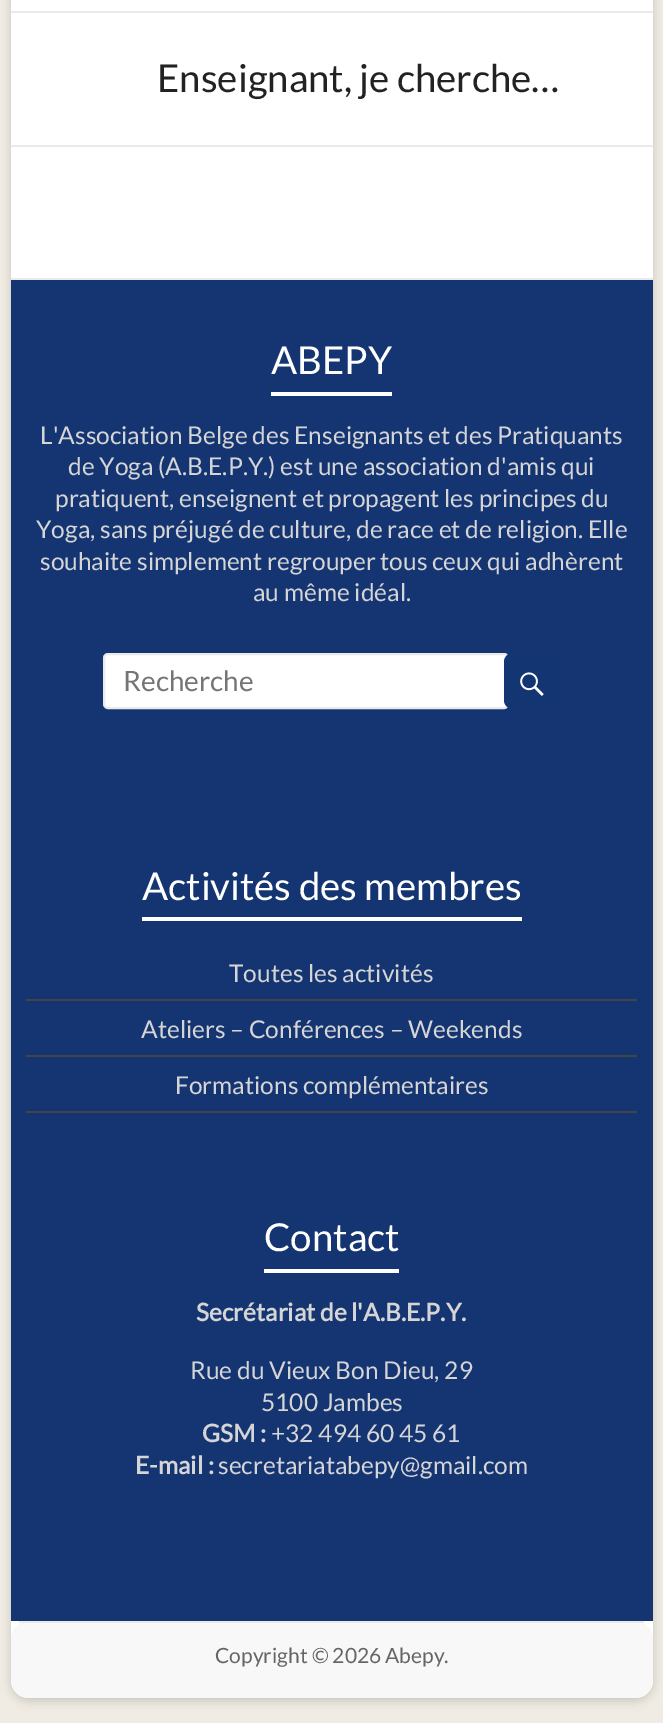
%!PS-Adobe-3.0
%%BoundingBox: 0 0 663 1723
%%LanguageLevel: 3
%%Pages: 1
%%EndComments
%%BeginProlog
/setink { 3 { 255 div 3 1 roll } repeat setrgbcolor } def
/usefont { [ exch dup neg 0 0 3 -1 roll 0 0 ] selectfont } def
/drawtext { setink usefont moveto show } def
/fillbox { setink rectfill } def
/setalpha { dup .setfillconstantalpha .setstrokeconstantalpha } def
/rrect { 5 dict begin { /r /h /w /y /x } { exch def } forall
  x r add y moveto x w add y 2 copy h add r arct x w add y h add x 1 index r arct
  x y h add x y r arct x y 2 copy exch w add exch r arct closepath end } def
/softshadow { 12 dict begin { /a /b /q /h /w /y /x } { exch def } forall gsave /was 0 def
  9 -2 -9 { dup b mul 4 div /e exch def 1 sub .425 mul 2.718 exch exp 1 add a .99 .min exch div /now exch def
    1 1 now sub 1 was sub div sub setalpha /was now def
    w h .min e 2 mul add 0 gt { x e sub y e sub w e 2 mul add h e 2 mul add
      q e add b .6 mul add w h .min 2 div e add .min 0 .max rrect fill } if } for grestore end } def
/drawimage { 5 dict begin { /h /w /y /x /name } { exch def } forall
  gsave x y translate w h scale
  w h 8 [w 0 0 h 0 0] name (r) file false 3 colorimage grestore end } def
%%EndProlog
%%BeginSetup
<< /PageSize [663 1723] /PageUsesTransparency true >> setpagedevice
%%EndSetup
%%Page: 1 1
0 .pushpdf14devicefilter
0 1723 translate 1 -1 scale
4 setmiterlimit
0 0 663 1723 240 236 227 fillbox
100 100 100 setink
11 -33 642 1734 18 5 0.3 softshadow
255 255 255 setink
11 -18 642 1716 18 rrect fill
11 11 642 2 234 234 234 fillbox
11 145 642 2 234 234 234 fillbox
(Enseignant, je cherche…) 157 92 /Lato-Regular 38.5 34 34 34 drawtext
11 280 642 1341 20 53 114 fillbox
11 278 642 2 234 234 234 fillbox
(ABEPY) 271 374 /Lato-Regular 38.5 255 255 255 drawtext
271 392 121 4 255 255 255 fillbox
(L'Association Belge des Enseignants et des Pratiquants) 40 444 /Lato-Regular 24.5 213 213 213 drawtext
(de Yoga \(A.B.E.P.Y.\) est une association d'amis qui) 68 475 /Lato-Regular 24.5 213 213 213 drawtext
(pratiquent, enseignent et propagent les principes du) 55 507 /Lato-Regular 24.5 213 213 213 drawtext
(Yoga, sans préjugé de culture, de race et de religion. Elle) 36 538 /Lato-Regular 24.5 213 213 213 drawtext
(souhaite simplement regrouper tous ceux qui adhèrent) 40 570 /Lato-Regular 24.5 213 213 213 drawtext
(au même idéal.) 253 601 /Lato-Regular 24.5 213 213 213 drawtext
255 255 255 setink
104 654 404 54 4 rrect gsave fill grestore
234 234 234 setink
2 setlinewidth
stroke
(Recherche) 123 691 /Lato-Regular 28 117 117 117 drawtext
19 53 114 setink
504 653 56 56 9 rrect fill
(assets/img1.rgb) 520 672 24 24 drawimage
(Activités des membres) 142 900 /Lato-Regular 38.5 255 255 255 drawtext
142 917 380 4 255 255 255 fillbox
26 999 611 2 68 68 68 fillbox
(Toutes les activités) 229 982 /Lato-Regular 24.5 213 213 213 drawtext
26 1055 611 2 68 68 68 fillbox
(Ateliers – Conférences – Weekends) 141 1038 /Lato-Regular 24.5 213 213 213 drawtext
26 1111 611 2 68 68 68 fillbox
(Formations complémentaires) 175 1094 /Lato-Regular 24.5 213 213 213 drawtext
(Contact) 264 1251 /Lato-Regular 38.5 255 255 255 drawtext
264 1269 135 4 255 255 255 fillbox
(Secrétariat de l'A.B.E.P.Y.) 196 1321 /Lato-Bold 24.5 213 213 213 drawtext
(Rue du Vieux Bon Dieu, 29) 190 1379 /Lato-Regular 24.5 213 213 213 drawtext
(5100 Jambes) 261 1411 /Lato-Regular 24.5 213 213 213 drawtext
(GSM :) 202 1442 /Lato-Bold 24.5 213 213 213 drawtext
(+32 494 60 45 61) 271 1442 /Lato-Regular 24.5 213 213 213 drawtext
(E-mail :) 135 1474 /Lato-Bold 24.5 213 213 213 drawtext
(secretariatabepy@gmail.com) 218 1474 /Lato-Regular 24.5 213 213 213 drawtext
248 248 248 setink
11 1621 642 77 18 rrect fill
19 1621 625 2 234 234 234 fillbox
(Copyright © 2026 Abepy.) 215 1663 /Lato-Regular 21 102 102 102 drawtext
.poppdf14devicefilter showpage
%%EOF
